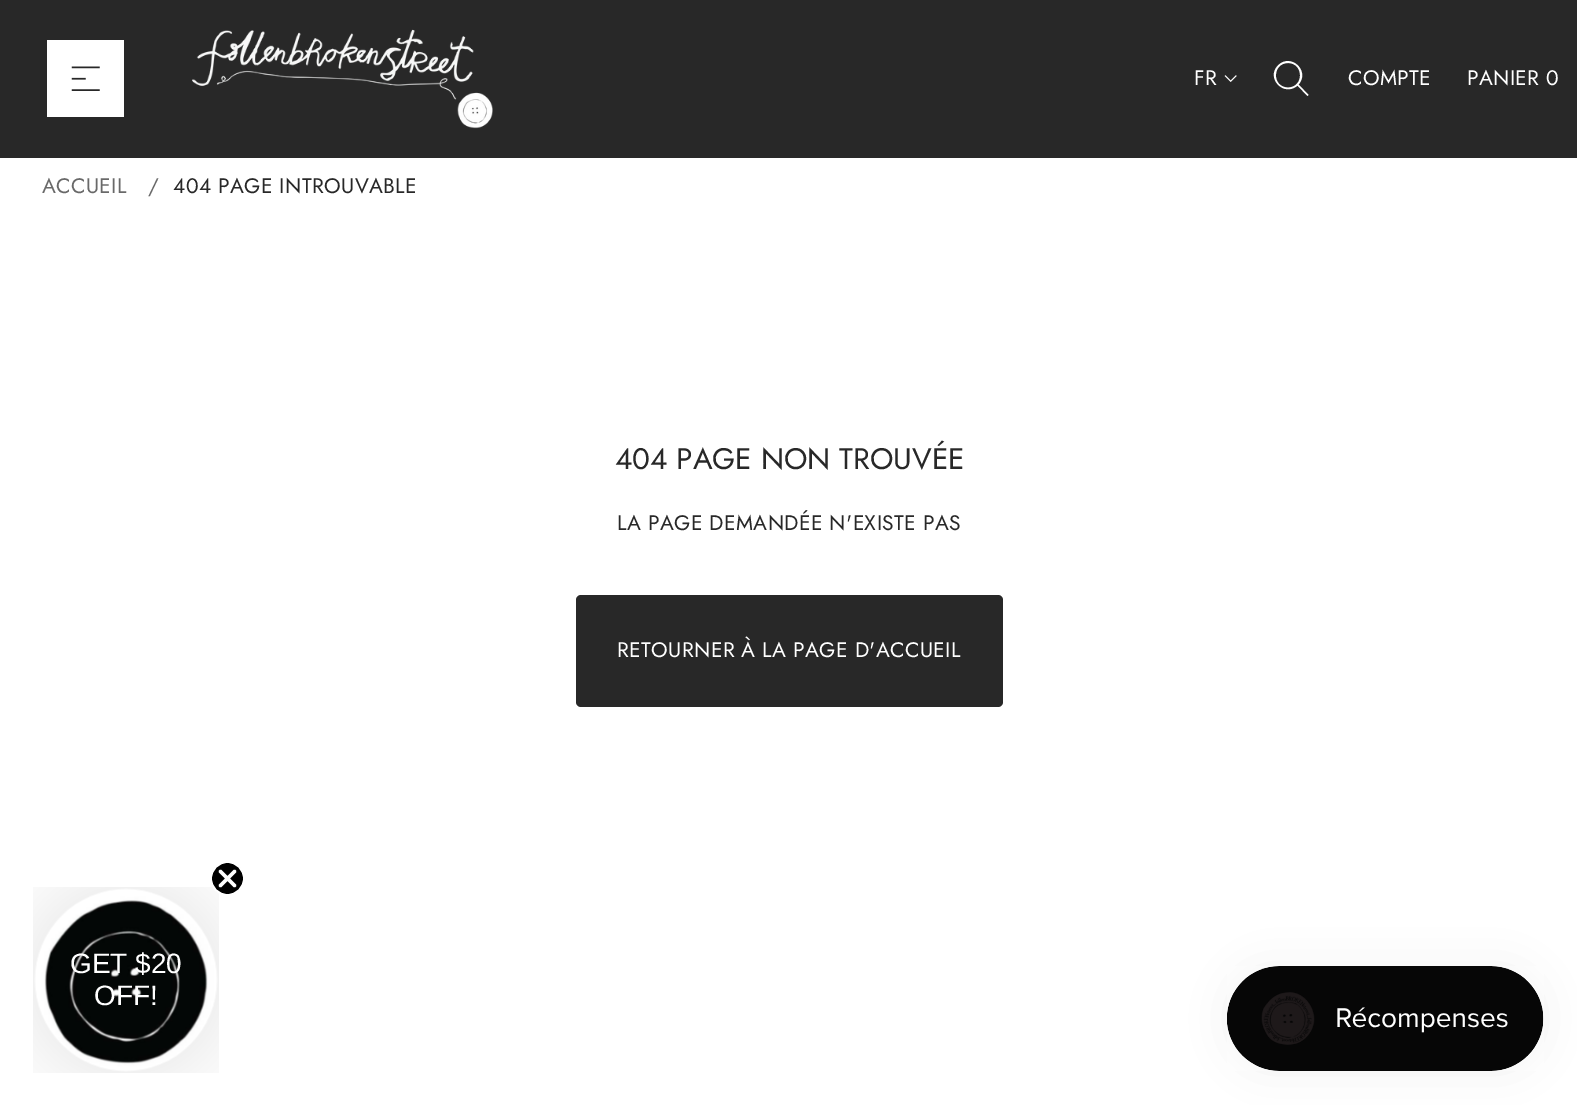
%!PS-Adobe-3.0
%%BoundingBox: 0 0 1577 1105
%%LanguageLevel: 3
%%Pages: 1
%%EndComments
%%BeginProlog
/setink { 3 { 255 div 3 1 roll } repeat setrgbcolor } def
/usefont { [ exch dup neg 0 0 3 -1 roll 0 0 ] selectfont } def
/drawtext { setink usefont moveto show } def
/fillbox { setink rectfill } def
/setalpha { dup .setfillconstantalpha .setstrokeconstantalpha } def
/disc { newpath 0 360 arc closepath } def
/rrect { 5 dict begin { /r /h /w /y /x } { exch def } forall
  x r add y moveto x w add y 2 copy h add r arct x w add y h add x 1 index r arct
  x y h add x y r arct x y 2 copy exch w add exch r arct closepath end } def
/softshadow { 12 dict begin { /a /b /q /h /w /y /x } { exch def } forall gsave /was 0 def
  9 -2 -9 { dup b mul 4 div /e exch def 1 sub .425 mul 2.718 exch exp 1 add a .99 .min exch div /now exch def
    1 1 now sub 1 was sub div sub setalpha /was now def
    w h .min e 2 mul add 0 gt { x e sub y e sub w e 2 mul add h e 2 mul add
      q e add b .6 mul add w h .min 2 div e add .min 0 .max rrect fill } if } for grestore end } def
/drawimage { 5 dict begin { /h /w /y /x /name } { exch def } forall
  gsave x y translate w h scale
  w h 8 [w 0 0 h 0 0] name (r) file false 3 colorimage grestore end } def
%%EndProlog
%%BeginSetup
<< /PageSize [1577 1105] /PageUsesTransparency true >> setpagedevice
%%EndSetup
%%Page: 1 1
0 .pushpdf14devicefilter
0 1105 translate 1 -1 scale
4 setmiterlimit
0 0 1577 1105 255 255 255 fillbox
0 0 1577 158 40 40 40 fillbox
47 40 77 77 255 255 255 fillbox
(assets/img1.rgb) 71 66 29 25 drawimage
(assets/img2.rgb) 192 29 301 100 drawimage
/Jost-Regular 21 usefont
1194 85 moveto 0.4 0 (FR) ashow
(assets/img3.rgb) 1224 75 13 7 drawimage
1308.5 95 moveto 1298.5 84.5 lineto 1310.5 71 1290.5 52.5 1278 65.5 curveto 1265.5 78 1284 97.5 1297.5 85.5 curveto 1307.5 96 lineto closepath 1288 87.5 moveto 1271.5 87.5 1272 62.5 1288.5 63 curveto 1304 63.5 1304 87.5 1288 87.5 curveto closepath fill
1348 85 moveto 0.4 0 (COMPTE) ashow
1467 85 moveto 0.4 0 (PANIER 0) ashow
105 105 105 setink
42 193 moveto 0.4 0 (ACCUEIL) ashow
148 193 moveto 0.4 0 (/) ashow
40 40 40 setink
173 193 moveto 0.4 0 (404 PAGE INTROUVABLE) ashow
(404 PAGE NON TROUVÉE) 615 469 /Jost-Regular 29.75 40 40 40 drawtext
/Jost-Regular 21 usefont
617 530 moveto 0.4 0 (LA PAGE DEMANDÉE N'EXISTE PAS) ashow
576 595 427 112 5 rrect fill
255 255 255 setink
617 657 moveto 0.4 0 (RETOURNER À LA PAGE D'ACCUEIL) ashow
(assets/img4.rgb) 33 887 186 186 drawimage
0 0 0 setink
227.5 878.5 16.5 disc gsave fill grestore
255 255 255 setink
1.8 setlinewidth
stroke
3.5 setlinewidth
1 setlinecap
1 setlinejoin
220.5 871.5 moveto 234.5 885.5 lineto 220.5 885.5 moveto 234.5 871.5 lineto closepath stroke
(GET $20) 70 973 /LiberationSans-Regular 28 255 255 255 drawtext
(OFF!) 94 1005 /LiberationSans-Regular 28 255 255 255 drawtext
0 0 0 setink
1227 966 317 105 52.5 22 0.05 softshadow
(assets/img5.rgb) 1227 966 317 105 drawimage
.poppdf14devicefilter showpage
%%EOF
